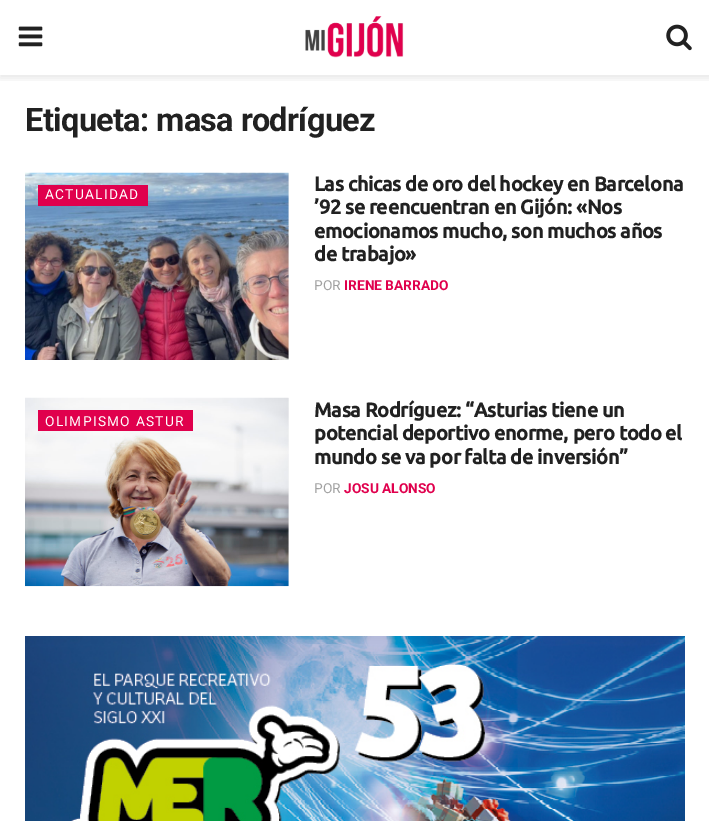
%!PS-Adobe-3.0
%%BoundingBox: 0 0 709 821
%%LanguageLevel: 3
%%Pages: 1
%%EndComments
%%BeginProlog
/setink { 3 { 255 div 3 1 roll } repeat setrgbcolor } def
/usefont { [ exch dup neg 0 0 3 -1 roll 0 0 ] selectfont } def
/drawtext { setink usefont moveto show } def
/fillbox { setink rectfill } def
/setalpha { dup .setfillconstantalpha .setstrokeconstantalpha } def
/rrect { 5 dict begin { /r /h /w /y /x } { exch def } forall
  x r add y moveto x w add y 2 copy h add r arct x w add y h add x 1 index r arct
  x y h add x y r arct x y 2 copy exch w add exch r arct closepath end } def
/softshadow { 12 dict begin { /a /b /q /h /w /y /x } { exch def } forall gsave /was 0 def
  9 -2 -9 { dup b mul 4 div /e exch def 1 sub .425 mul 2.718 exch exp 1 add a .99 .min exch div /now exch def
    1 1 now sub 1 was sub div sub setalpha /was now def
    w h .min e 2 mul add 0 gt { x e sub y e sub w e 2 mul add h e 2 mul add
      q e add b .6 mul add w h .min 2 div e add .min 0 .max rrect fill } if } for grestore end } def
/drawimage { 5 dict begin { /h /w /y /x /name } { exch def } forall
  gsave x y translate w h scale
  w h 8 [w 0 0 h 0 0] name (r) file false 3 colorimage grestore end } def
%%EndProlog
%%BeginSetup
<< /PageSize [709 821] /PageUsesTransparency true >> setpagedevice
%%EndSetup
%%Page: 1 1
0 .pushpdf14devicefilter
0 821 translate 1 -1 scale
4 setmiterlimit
0 0 709 821 255 255 255 fillbox
gsave
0 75 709 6 rectclip
0 0 0 setink
0 3 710 75 0 4 0.1 softshadow
grestore
(assets/img1.rgb) 18 26 25 21 drawimage
(assets/img2.rgb) 305 16 99 42 drawimage
(assets/img3.rgb) 666 24 26 27 drawimage
/Roboto-Bold 32.5 usefont
33 33 33 setink
25 131 moveto -0.65 0 (Etiqueta: masa rodríguez) ashow
288 173 1 187 247 247 247 fillbox
(assets/img4.rgb) 25 172 264 188 drawimage
38 185 110 21 224 0 77 fillbox
/Roboto-Regular 13.75 usefont
255 255 255 setink
45 199 moveto 1.25 0 (ACTUALIDAD) ashow
/Ubuntu-Bold 20 usefont
33 33 33 setink
314 191 moveto -0.4 0 (Las chicas de oro del hockey en Barcelona) ashow
314 214 moveto -0.4 0 (’92 se reencuentran en Gijón: «Nos) ashow
314 238 moveto -0.4 0 (emocionamos mucho, son muchos años) ashow
314 261 moveto -0.4 0 (de trabajo») ashow
(POR) 314 290 /Roboto-Regular 13.75 160 160 160 drawtext
(IRENE BARRADO) 344 290 /Roboto-Bold 13.75 224 0 77 drawtext
288 398 1 188 247 247 247 fillbox
(assets/img5.rgb) 25 397 264 190 drawimage
38 410 155 21 224 0 77 fillbox
/Roboto-Regular 13.75 usefont
255 255 255 setink
45 426 moveto 1.25 0 (OLIMPISMO ASTUR) ashow
/Ubuntu-Bold 20 usefont
33 33 33 setink
314 417 moveto -0.4 0 (Masa Rodríguez: “Asturias tiene un) ashow
314 440 moveto -0.4 0 (potencial deportivo enorme, pero todo el) ashow
314 464 moveto -0.4 0 (mundo se va por falta de inversión”) ashow
(POR) 314 493 /Roboto-Regular 13.75 160 160 160 drawtext
(JOSU ALONSO) 344 493 /Roboto-Bold 13.75 224 0 77 drawtext
(assets/img6.rgb) 25 636 660 185 drawimage
.poppdf14devicefilter showpage
%%EOF
